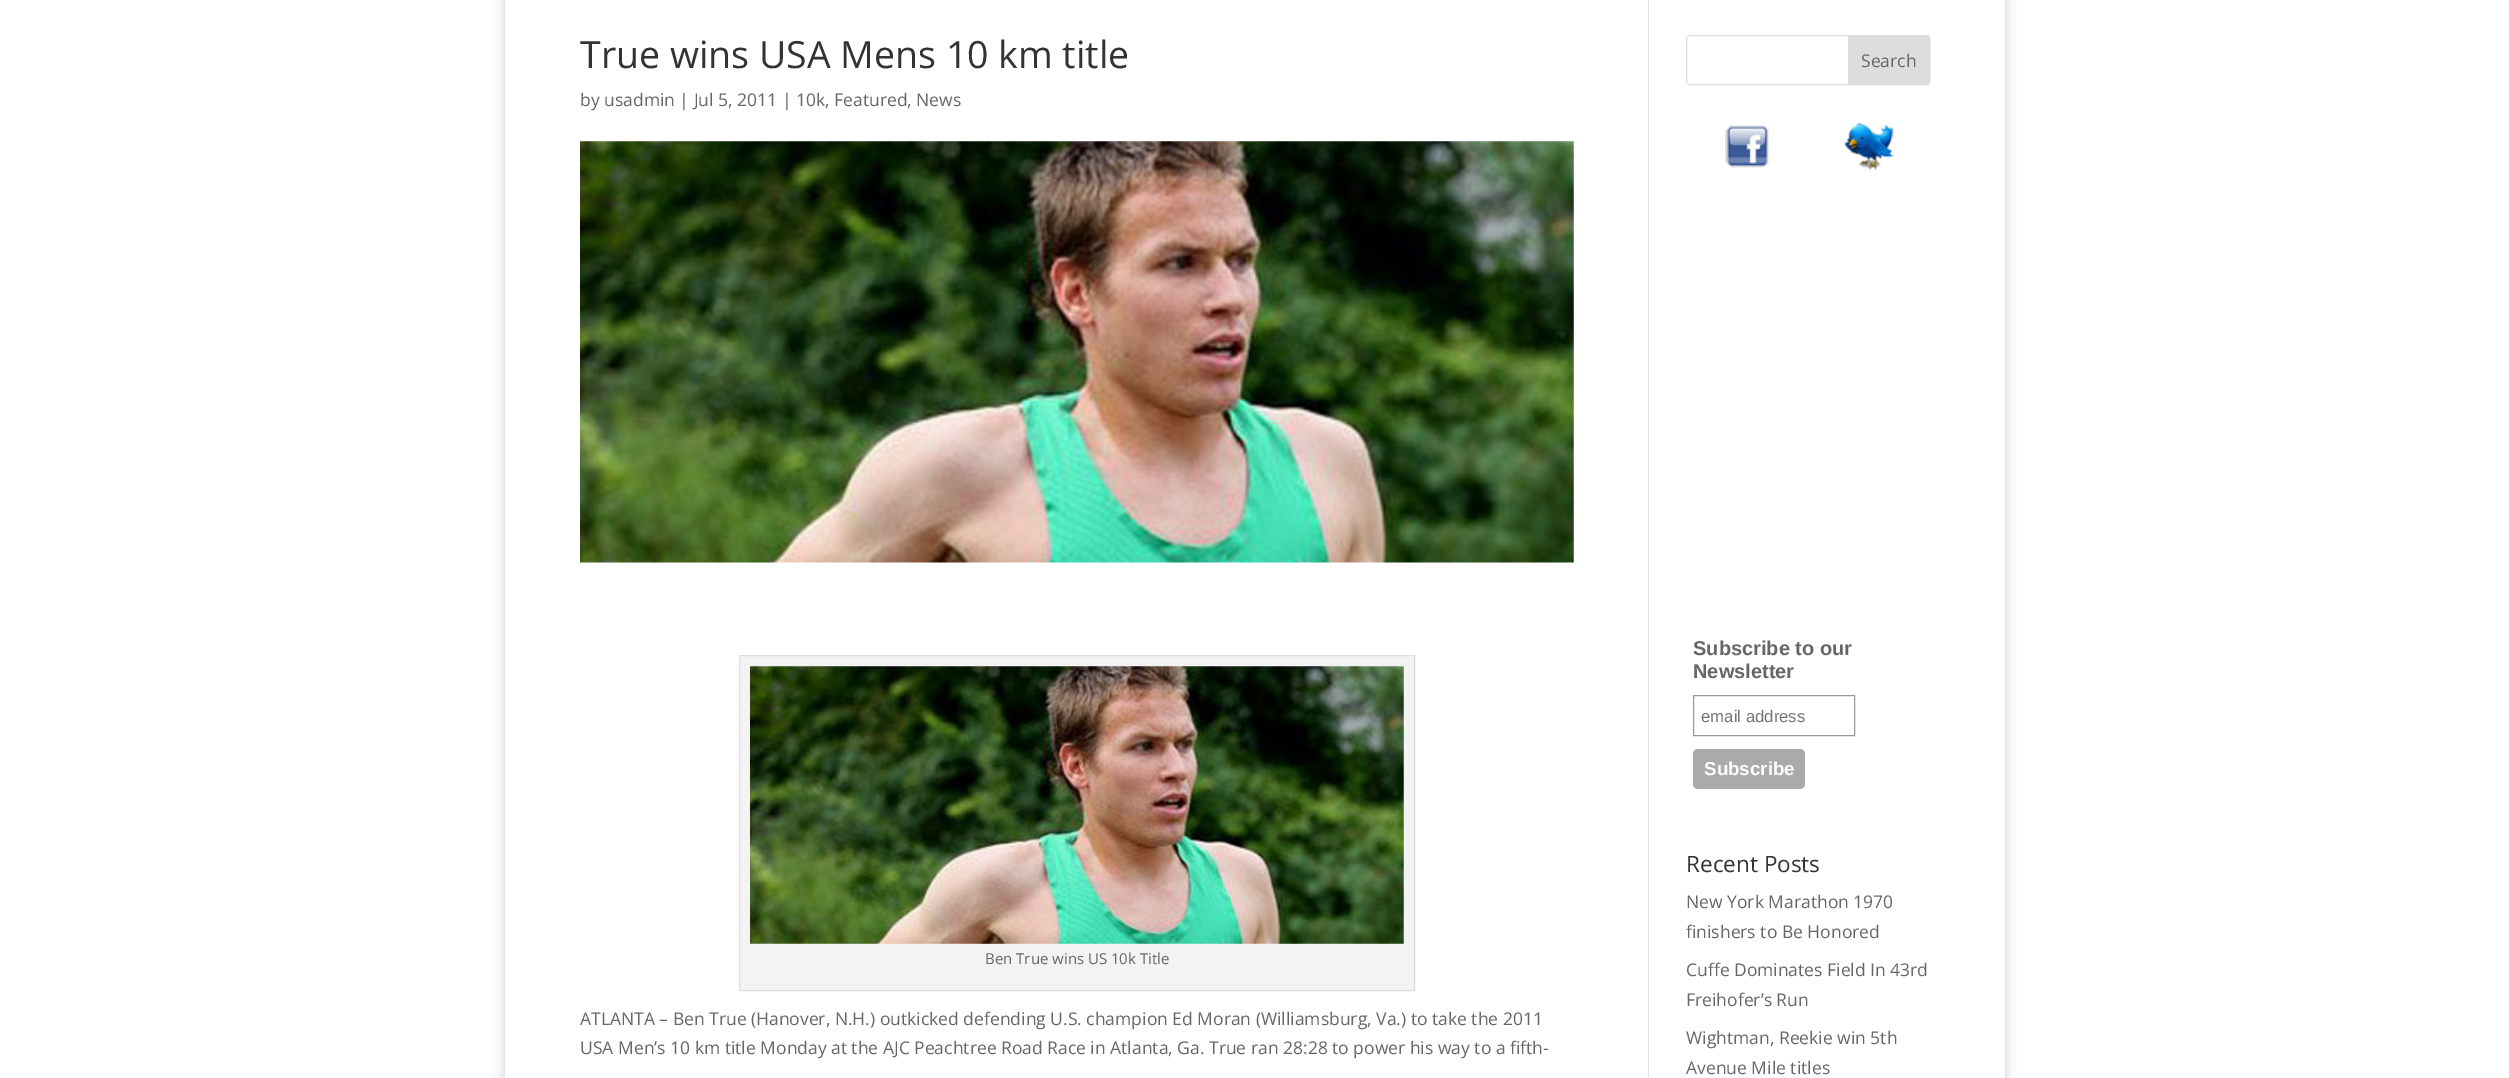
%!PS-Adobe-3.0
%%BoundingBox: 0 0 2509 1078
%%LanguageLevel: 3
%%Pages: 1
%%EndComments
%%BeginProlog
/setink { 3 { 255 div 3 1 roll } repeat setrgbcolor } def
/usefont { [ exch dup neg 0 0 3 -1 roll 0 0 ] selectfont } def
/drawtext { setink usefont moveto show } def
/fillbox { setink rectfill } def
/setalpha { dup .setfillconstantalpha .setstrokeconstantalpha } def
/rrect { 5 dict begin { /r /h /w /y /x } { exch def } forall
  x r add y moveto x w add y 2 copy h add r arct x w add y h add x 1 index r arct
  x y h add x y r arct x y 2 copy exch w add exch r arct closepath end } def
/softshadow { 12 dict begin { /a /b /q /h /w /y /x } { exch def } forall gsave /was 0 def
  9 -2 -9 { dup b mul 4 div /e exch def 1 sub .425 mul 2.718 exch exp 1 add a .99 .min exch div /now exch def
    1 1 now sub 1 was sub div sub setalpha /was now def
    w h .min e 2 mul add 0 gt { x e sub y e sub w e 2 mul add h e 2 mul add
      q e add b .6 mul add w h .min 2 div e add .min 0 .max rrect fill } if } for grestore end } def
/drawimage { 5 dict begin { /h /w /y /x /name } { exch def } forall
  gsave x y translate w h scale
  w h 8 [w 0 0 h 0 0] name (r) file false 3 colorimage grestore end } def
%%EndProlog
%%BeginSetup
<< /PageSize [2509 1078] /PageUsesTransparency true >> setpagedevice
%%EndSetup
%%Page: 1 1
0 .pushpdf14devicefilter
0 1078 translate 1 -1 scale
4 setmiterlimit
0 0 2509 1078 255 255 255 fillbox
gsave
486 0 moveto 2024 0 lineto 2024 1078 lineto 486 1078 lineto closepath 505 -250 moveto 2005 -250 lineto 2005 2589 lineto 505 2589 lineto closepath eoclip newpath
0 0 0 setink
505 -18 1500 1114 0 6 0.2 softshadow
grestore
1648 0 1 1078 226 226 226 fillbox
(True wins USA Mens 10 km title) 580 68 /OpenSans-Regular 37.5 51 51 51 drawtext
(by usadmin | Jul 5, 2011 | 10k, Featured, News) 580 106 /OpenSans-Regular 17.5 102 102 102 drawtext
(assets/img1.rgb) 580 141 994 422 drawimage
243 243 243 setink
739.5 655.5 moveto 1414.5 655.5 lineto 1414.5 990.5 lineto 739.5 990.5 lineto closepath gsave fill grestore
221 221 221 setink
stroke
(assets/img2.rgb) 750 666 654 278 drawimage
(Ben True wins US 10k Title) 985 964 /OpenSans-Regular 15 102 102 102 drawtext
(ATLANTA – Ben True \(Hanover, N.H.\) outkicked defending U.S. champion Ed Moran \(Williamsburg, Va.\) to take the 2011) 580 1025 /OpenSans-Regular 17.5 102 102 102 drawtext
(USA Men’s 10 km title Monday at the AJC Peachtree Road Race in Atlanta, Ga. True ran 28:28 to power his way to a fifth-) 580 1054 /OpenSans-Regular 17.5 102 102 102 drawtext
221 221 221 setink
1686.5 35.5 243 49 3.5 rrect stroke
1848.5 35.5 moveto 1926 35.5 lineto 1928 35.5 1929.5 37 1929.5 39 curveto 1929.5 81 lineto 1929.5 83 1928 84.5 1926 84.5 curveto 1848.5 84.5 lineto closepath gsave fill grestore
stroke
(Search) 1861 67 /OpenSans-Regular 17.5 102 102 102 drawtext
(assets/img3.rgb) 1725 125 44 43 drawimage
(assets/img4.rgb) 1842 122 52 48 drawimage
(Subscribe to our) 1693 655 /LiberationSans-Bold 20 102 102 102 drawtext
(Newsletter) 1693 678 /LiberationSans-Bold 20 102 102 102 drawtext
153 153 153 setink
1693.5 695.5 161 40 rectstroke
(email address) 1701 722 /LiberationSans-Regular 16.75 117 117 117 drawtext
170 170 170 setink
1693 749 112 40 5 rrect fill
(Subscribe) 1704 775 /LiberationSans-Bold 18.75 255 255 255 drawtext
(Recent Posts) 1686 872 /OpenSans-Regular 22.5 51 51 51 drawtext
(New York Marathon 1970) 1686 908 /OpenSans-Regular 17.5 102 102 102 drawtext
(finishers to Be Honored) 1686 938 /OpenSans-Regular 17.5 102 102 102 drawtext
(Cuffe Dominates Field In 43rd) 1686 976 /OpenSans-Regular 17.5 102 102 102 drawtext
(Freihofer’s Run) 1686 1006 /OpenSans-Regular 17.5 102 102 102 drawtext
(Wightman, Reekie win 5th) 1686 1044 /OpenSans-Regular 17.5 102 102 102 drawtext
(Avenue Mile titles) 1686 1074 /OpenSans-Regular 17.5 102 102 102 drawtext
.poppdf14devicefilter showpage
%%EOF
